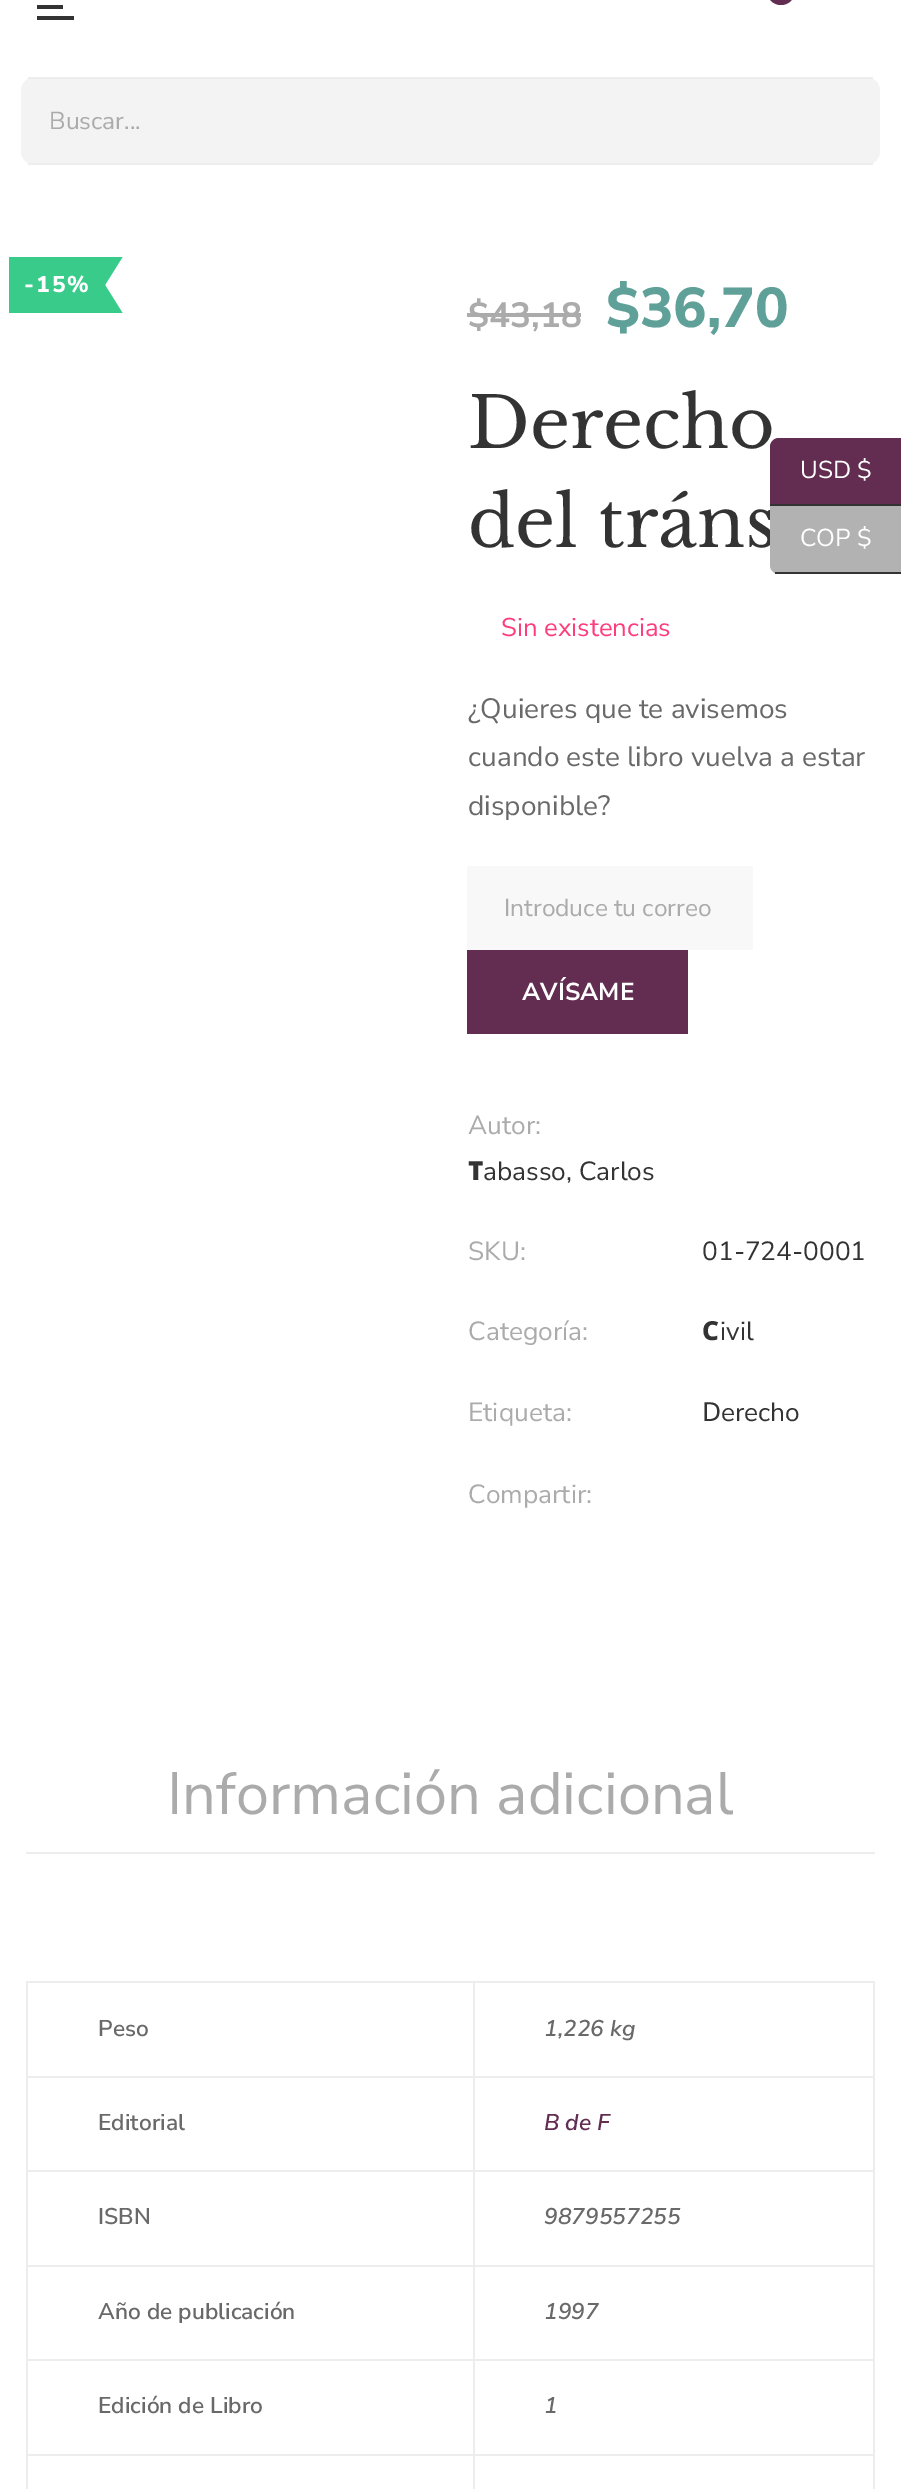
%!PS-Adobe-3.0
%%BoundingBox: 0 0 901 2489
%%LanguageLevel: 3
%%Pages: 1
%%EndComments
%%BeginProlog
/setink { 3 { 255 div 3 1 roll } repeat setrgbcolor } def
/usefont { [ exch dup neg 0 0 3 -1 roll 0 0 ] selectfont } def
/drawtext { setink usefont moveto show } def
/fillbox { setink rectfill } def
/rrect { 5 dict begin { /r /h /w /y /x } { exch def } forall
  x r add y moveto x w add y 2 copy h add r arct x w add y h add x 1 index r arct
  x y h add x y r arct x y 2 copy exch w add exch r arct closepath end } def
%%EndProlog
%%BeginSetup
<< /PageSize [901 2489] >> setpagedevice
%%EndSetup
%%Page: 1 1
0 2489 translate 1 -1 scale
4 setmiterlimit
0 0 901 2489 255 255 255 fillbox
98 45 80 setink
767 -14 28 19 14 rrect fill
37 5 26 4 51 51 51 fillbox
37 16 37 4 51 51 51 fillbox
243 243 243 setink
21 77 859 88 14 rrect fill
28 77 845 2 237 237 237 fillbox
28 163 845 2 237 237 237 fillbox
(Buscar...) 49 129 /NunitoSans-Regular 24.5 171 171 171 drawtext
9 257 96 56 56 203 137 fillbox
/NunitoSans-ExtraBold 22.75 usefont
255 255 255 setink
24 292 moveto 2 0 (-15%) ashow
56 203 137 setink
105 257 moveto 122.5 257 lineto 105 285 lineto closepath 122.5 313 moveto 105 313 lineto 105 285 lineto closepath fill
($43,18) 468 327 /NunitoSans-Bold 35 171 171 171 drawtext
467 313 114 4 171 171 171 fillbox
($36,70) 606 327 /NunitoSans-ExtraBold 56 95 161 153 drawtext
(Derecho) 468 448 /LibreBaskerville-Regular 70 51 51 51 drawtext
(del tráns) 468 547 /LibreBaskerville-Regular 70 51 51 51 drawtext
(Sin existencias) 501 636 /NunitoSans-Regular 25.75 254 61 125 drawtext
(¿Quieres que te avisemos) 468 718 /NunitoSans-Regular 28 105 105 105 drawtext
(cuando este libro vuelva a estar) 468 766 /NunitoSans-Regular 28 105 105 105 drawtext
(disponible?) 468 815 /NunitoSans-Regular 28 105 105 105 drawtext
467 866 286 84 248 248 248 fillbox
(Introduce tu correo) 504 916 /NunitoSans-Regular 24.5 171 171 171 drawtext
467 950 221 84 98 45 80 fillbox
(AVÍSAME) 522 1000 /NunitoSans-Bold 24.5 255 255 255 drawtext
(Autor:) 468 1134 /NunitoSans-Regular 26.25 171 171 171 drawtext
(T) 468 1180 /NotoSans-Black 26.25 51 51 51 drawtext
(abasso, Carlos) 483 1180 /NunitoSans-Regular 26.25 51 51 51 drawtext
(SKU:) 468 1260 /NunitoSans-Regular 26.25 171 171 171 drawtext
(01-724-0001) 702 1260 /NunitoSans-Regular 26.25 51 51 51 drawtext
(Categoría:) 468 1340 /NunitoSans-Regular 26.25 171 171 171 drawtext
(C) 702 1340 /NotoSans-ExtraBold 26.25 51 51 51 drawtext
(ivil) 720 1340 /NunitoSans-Regular 26.25 51 51 51 drawtext
(Etiqueta:) 468 1421 /NunitoSans-Regular 26.25 171 171 171 drawtext
(D) 702 1421 /NotoSans-Regular 26.25 51 51 51 drawtext
(erecho) 721 1421 /NunitoSans-Regular 26.25 51 51 51 drawtext
(Compartir:) 468 1503 /NunitoSans-Regular 26.25 171 171 171 drawtext
26 1852 849 2 237 237 237 fillbox
(Información adicional) 167 1814 /NunitoSans-Regular 59.5 171 171 171 drawtext
473 1981 402 2 237 237 237 fillbox
473 2076 402 2 237 237 237 fillbox
473 2170 402 2 237 237 237 fillbox
473 2265 402 2 237 237 237 fillbox
473 2359 402 2 237 237 237 fillbox
473 2454 402 2 237 237 237 fillbox
473 2454 2 35 237 237 237 fillbox
26 2454 448 2 237 237 237 fillbox
473 2359 2 96 237 237 237 fillbox
26 2359 448 2 237 237 237 fillbox
473 2265 2 96 237 237 237 fillbox
26 2265 448 2 237 237 237 fillbox
473 2170 2 96 237 237 237 fillbox
26 2170 448 2 237 237 237 fillbox
473 2076 2 96 237 237 237 fillbox
26 2076 448 2 237 237 237 fillbox
473 1981 2 96 237 237 237 fillbox
26 1981 448 2 237 237 237 fillbox
26 2454 2 35 237 237 237 fillbox
26 2359 2 96 237 237 237 fillbox
26 2265 2 96 237 237 237 fillbox
26 2170 2 96 237 237 237 fillbox
26 2076 2 96 237 237 237 fillbox
26 1981 2 96 237 237 237 fillbox
(Peso) 98 2036 /NunitoSans-SemiBold 22.75 105 105 105 drawtext
873 2454 2 35 237 237 237 fillbox
873 2359 2 96 237 237 237 fillbox
873 2265 2 96 237 237 237 fillbox
873 2170 2 96 237 237 237 fillbox
873 2076 2 96 237 237 237 fillbox
873 1981 2 96 237 237 237 fillbox
(1,226 kg) 544 2036 /NunitoSans-SemiBoldItalic 22.75 105 105 105 drawtext
(Editorial) 98 2130 /NunitoSans-SemiBold 22.75 105 105 105 drawtext
(B de F) 544 2130 /NunitoSans-SemiBoldItalic 22.75 98 45 80 drawtext
(ISBN) 98 2224 /NunitoSans-SemiBold 22.75 105 105 105 drawtext
(9879557255) 544 2224 /NunitoSans-SemiBoldItalic 22.75 105 105 105 drawtext
(Año de publicación) 98 2319 /NunitoSans-SemiBold 22.75 105 105 105 drawtext
(1997) 544 2319 /NunitoSans-SemiBoldItalic 22.75 105 105 105 drawtext
(Edición de Libro) 98 2413 /NunitoSans-SemiBold 22.75 105 105 105 drawtext
(1) 544 2413 /NunitoSans-SemiBoldItalic 22.75 105 105 105 drawtext
98 45 80 setink
779 438 moveto 901 438 lineto 901 506 lineto 770 506 lineto 770 447 lineto 770 442 774 438 779 438 curveto closepath fill
770 504 131 2 51 51 51 fillbox
(USD $) 800 478 /NunitoSans-Regular 24.5 255 255 255 drawtext
178 178 178 setink
770 506 moveto 901 506 lineto 901 574 lineto 779 574 lineto 774 574 770 570 770 565 curveto closepath fill
775 572 126 2 51 51 51 fillbox
(COP $) 800 546 /NunitoSans-Regular 24.5 255 255 255 drawtext
showpage
%%EOF
